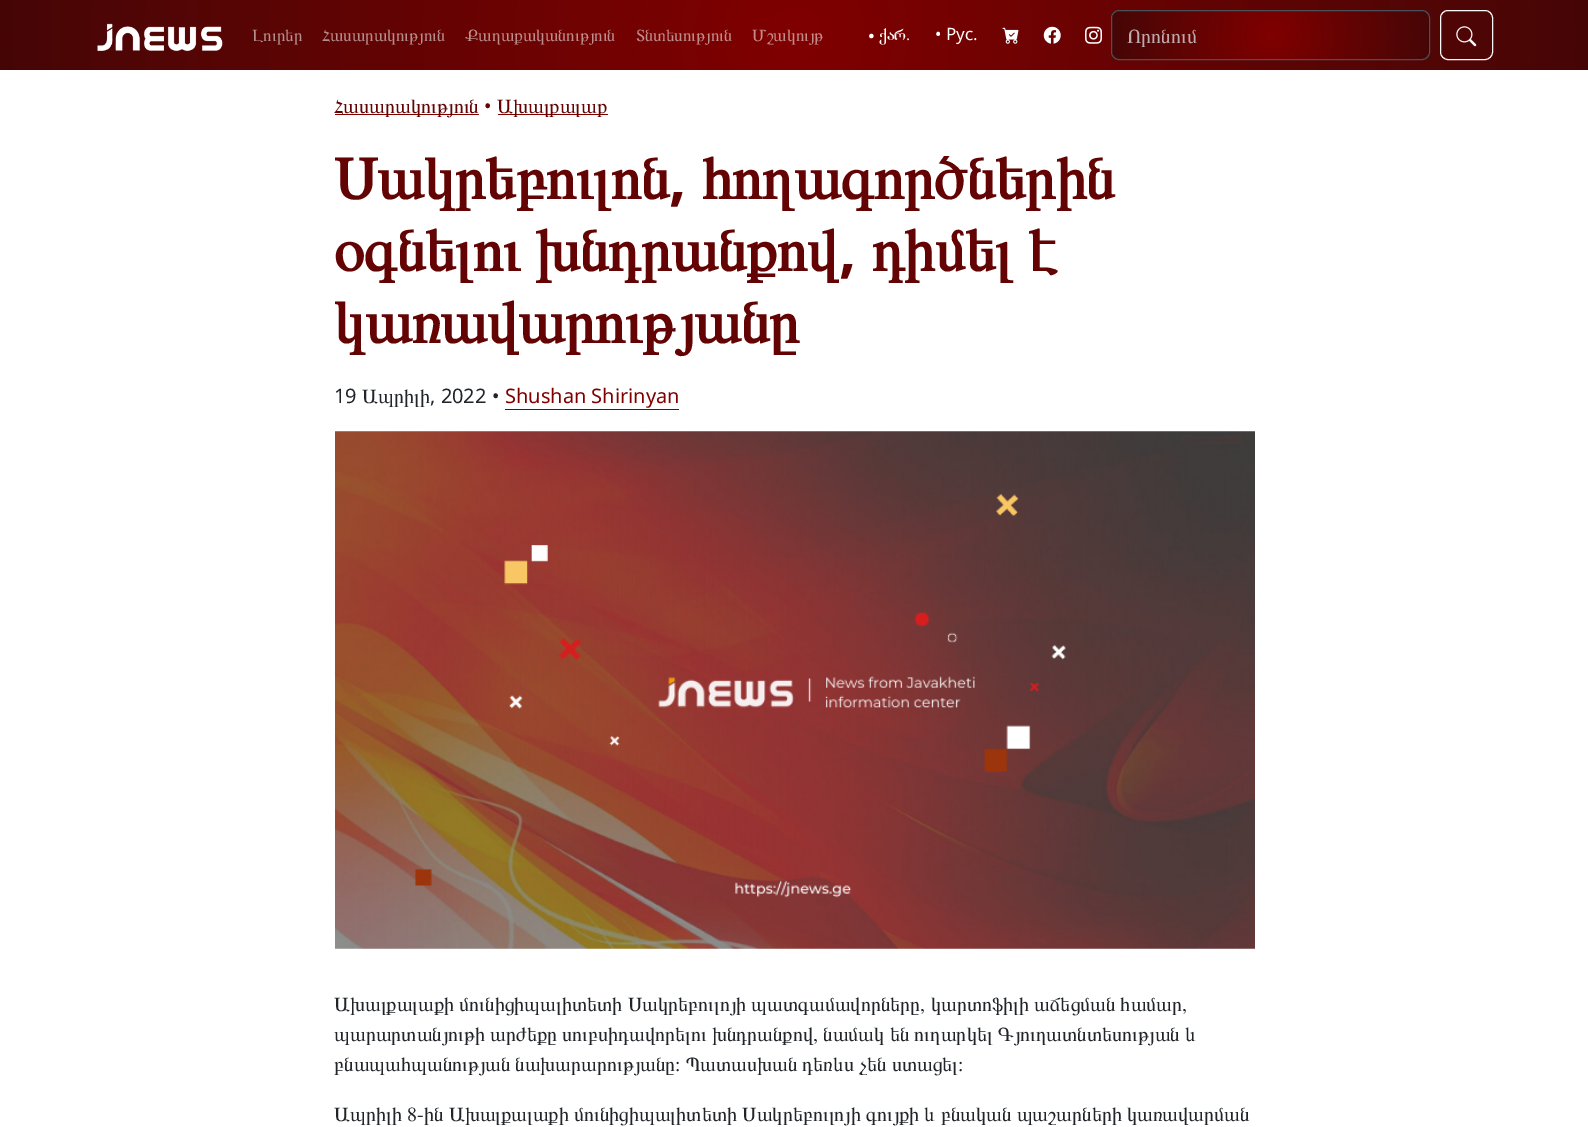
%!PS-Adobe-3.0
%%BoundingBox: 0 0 1588 1127
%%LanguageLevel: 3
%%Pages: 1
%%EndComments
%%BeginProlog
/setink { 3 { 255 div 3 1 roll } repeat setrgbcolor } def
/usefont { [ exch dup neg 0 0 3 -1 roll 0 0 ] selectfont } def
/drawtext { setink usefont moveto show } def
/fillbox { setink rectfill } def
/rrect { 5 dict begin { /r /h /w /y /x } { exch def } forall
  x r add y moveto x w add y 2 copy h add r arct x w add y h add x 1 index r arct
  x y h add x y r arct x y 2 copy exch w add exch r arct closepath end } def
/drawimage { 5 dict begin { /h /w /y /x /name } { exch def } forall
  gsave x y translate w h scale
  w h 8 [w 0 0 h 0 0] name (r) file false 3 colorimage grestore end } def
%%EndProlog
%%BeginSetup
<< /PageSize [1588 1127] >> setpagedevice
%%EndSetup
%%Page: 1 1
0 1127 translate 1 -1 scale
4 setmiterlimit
0 0 1588 1127 255 255 255 fillbox
gsave 0 0 moveto 1588 0 lineto 1588 70 lineto 0 70 lineto closepath clip newpath 794 35 translate 795 795 scale
<< /ShadingType 3 /ColorSpace /DeviceRGB /Coords [0 0 0 0 0 1] /Extend [true true] /Function << /FunctionType 2 /Domain [0 1] /C0 [0.502 0 0] /C1 [0.275 0.024 0.024] /N 1 >> >> shfill grestore
(assets/img1.rgb) 97 23 126 28 drawimage
(Լուրեր) 252 41 /FreeSerif-Regular 17 181 142 142 drawtext
(Հասարակություն) 322 41 /FreeSerif-Regular 17 181 142 142 drawtext
(Քաղաքականություն) 465 41 /FreeSerif-Regular 17 190 141 141 drawtext
(Տնտեսություն) 636 41 /FreeSerif-Regular 17 190 141 141 drawtext
(Մշակույթ) 752 41 /FreeSerif-Regular 17 197 140 140 drawtext
(• ქარ.) 868 40 /FreeSerif-Regular 17 255 255 255 drawtext
(• Рус.) 935 40 /NotoSans-Regular 17 255 255 255 drawtext
(assets/img2.rgb) 1002 27 17 17 drawimage
(assets/img3.rgb) 1043 26 18 18 drawimage
(assets/img4.rgb) 1085 26 17 18 drawimage
gsave
1111 10 319 50 8 rrect clip newpath
gsave 1111 11 moveto 1113 11 lineto 1113 59 lineto 1111 59 lineto closepath clip newpath 954 35 translate 160 160 scale
<< /ShadingType 3 /ColorSpace /DeviceRGB /Coords [0 0 0 0 0 1] /Extend [true true] /Function << /FunctionType 2 /Domain [0 1] /C0 [0.502 0 0] /C1 [0.275 0.024 0.024] /N 1 >> >> shfill grestore
gsave 1113 11 moveto 1429 11 lineto 1429 59 lineto 1113 59 lineto closepath clip newpath 1271 35 translate 160 160 scale
<< /ShadingType 3 /ColorSpace /DeviceRGB /Coords [0 0 0 0 0 1] /Extend [true true] /Function << /FunctionType 2 /Domain [0 1] /C0 [0.502 0 0] /C1 [0.275 0.024 0.024] /N 1 >> >> shfill grestore
grestore
73 80 87 setink
1111.5 10.5 318 49 7.5 rrect stroke
(Որոնում) 1127 43 /FreeSerif-Regular 20 189 171 174 drawtext
248 249 250 setink
1440.5 10.5 52 49 7.5 rrect stroke
(assets/img5.rgb) 1456 26 21 21 drawimage
335 114 144 1 128 0 0 fillbox
(Հասարակություն) 334 113 /FreeSerif-Regular 20 99 3 3 drawtext
(•) 484 113 /NotoSans-Regular 20 99 3 3 drawtext
498 114 110 1 128 0 0 fillbox
(Ախալքալաք) 497 113 /FreeSerif-Regular 20 99 3 3 drawtext
(Սակրեբուլոն) 334 199 /FreeSerif-Bold 60 99 3 3 drawtext
(,) 669 199 /NotoSans-Bold 60 99 3 3 drawtext
(հողագործներին) 702 199 /FreeSerif-Bold 60 99 3 3 drawtext
(օգնելու խնդրանքով) 334 271 /FreeSerif-Bold 60 99 3 3 drawtext
(,) 839 271 /NotoSans-Bold 60 99 3 3 drawtext
(դիմել է) 872 271 /FreeSerif-Bold 60 99 3 3 drawtext
(կառավարությանը) 334 343 /FreeSerif-Bold 60 99 3 3 drawtext
(19) 334 403 /NotoSans-Regular 20 33 37 41 drawtext
(Ապրիլի) 362 403 /FreeSerif-Regular 20 33 37 41 drawtext
(, 2022 •) 430 403 /NotoSans-Regular 20 33 37 41 drawtext
(Shushan Shirinyan) 505 403 /NotoSans-Regular 20 128 0 0 drawtext
505 409 174 1 128 0 0 fillbox
(assets/img6.rgb) 335 431 920 518 drawimage
/FreeSerif-Regular 20 usefont
33 37 41 setink
334 1011 moveto 0.25 0 32 (Ախալքալաքի մունիցիպալիտետի Սակրեբուլոյի պատգամավորները, կարտոֆիլի աճեցման համար,) widthshow
334 1041 moveto 0.25 0 32 (պարարտանյութի արժեքը սուբսիդավորելու խնդրանքով, նամակ են ուղարկել Գյուղատնտեսության և) widthshow
334 1071 moveto 0.25 0 32 (բնապահպանության նախարարությանը։ Պատասխան դեռևս չեն ստացել:) widthshow
334 1121 moveto 0.25 0 32 (Ապրիլի 8-ին Ախալքալաքի մունիցիպալիտետի Սակրեբուլոյի գույքի և բնական պաշարների կառավարման) widthshow
showpage
%%EOF
